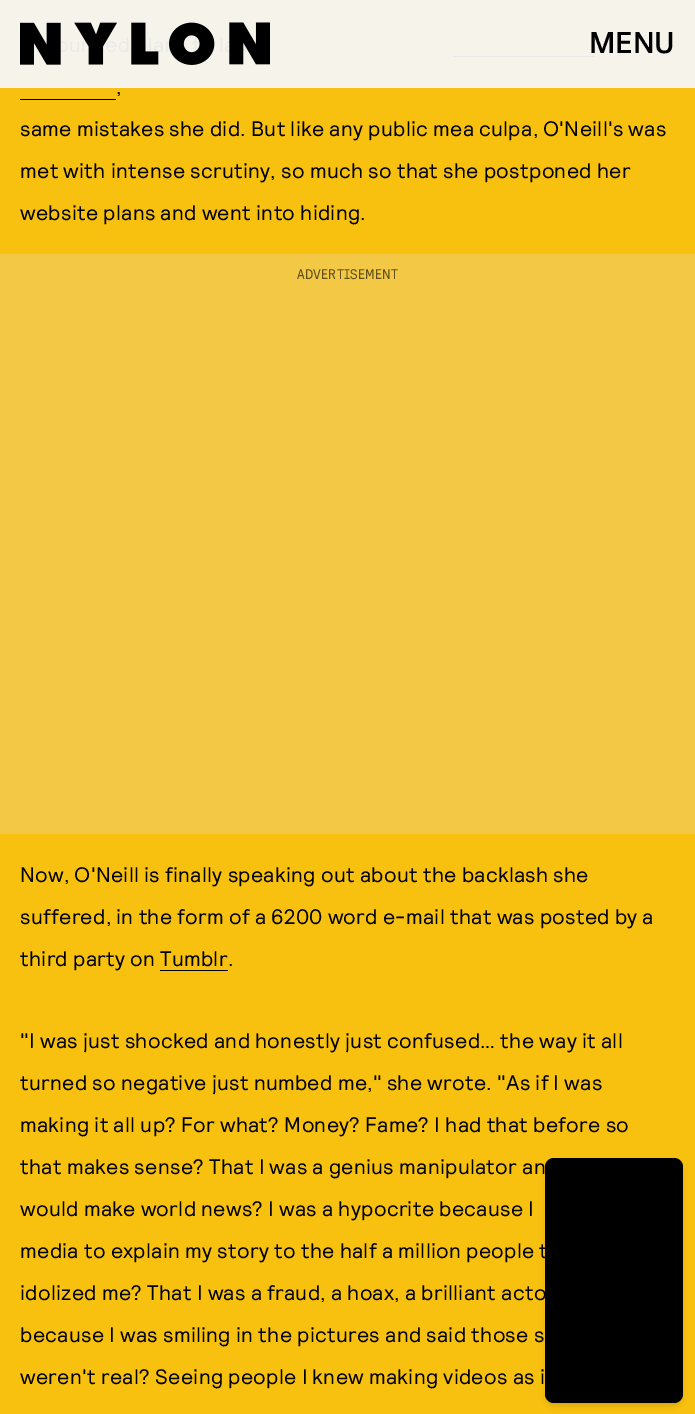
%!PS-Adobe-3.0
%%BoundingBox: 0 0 695 1414
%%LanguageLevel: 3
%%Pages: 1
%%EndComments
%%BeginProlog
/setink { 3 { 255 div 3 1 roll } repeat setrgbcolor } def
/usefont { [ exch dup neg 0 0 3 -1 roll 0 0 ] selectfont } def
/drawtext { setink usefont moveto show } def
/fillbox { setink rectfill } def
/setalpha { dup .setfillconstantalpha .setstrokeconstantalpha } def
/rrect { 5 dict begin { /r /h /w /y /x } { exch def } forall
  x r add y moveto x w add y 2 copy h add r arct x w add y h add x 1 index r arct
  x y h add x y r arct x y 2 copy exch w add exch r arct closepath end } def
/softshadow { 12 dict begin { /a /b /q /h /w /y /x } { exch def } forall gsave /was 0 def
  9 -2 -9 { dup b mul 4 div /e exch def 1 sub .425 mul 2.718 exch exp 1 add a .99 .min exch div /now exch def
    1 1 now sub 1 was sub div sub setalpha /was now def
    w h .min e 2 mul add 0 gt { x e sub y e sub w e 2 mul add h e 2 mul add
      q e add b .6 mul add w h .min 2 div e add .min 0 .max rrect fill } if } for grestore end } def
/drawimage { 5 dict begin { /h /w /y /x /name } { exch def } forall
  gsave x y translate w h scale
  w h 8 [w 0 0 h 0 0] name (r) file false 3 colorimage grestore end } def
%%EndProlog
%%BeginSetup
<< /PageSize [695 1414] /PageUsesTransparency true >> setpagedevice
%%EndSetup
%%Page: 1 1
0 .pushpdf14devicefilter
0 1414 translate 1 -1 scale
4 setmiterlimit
0 0 695 1414 249 193 15 fillbox
453 56 142 1 0 0 0 fillbox
0.95 setalpha
0 0 695 88 246 246 246 fillbox
1 setalpha
(assets/img1.rgb) 20 22 250 43 drawimage
(MENU) 589 53 /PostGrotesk-Medium 30 0 0 0 drawtext
/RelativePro-Regular 21 usefont
116 94 moveto 0.25 0 (,) ashow
20 99 96 1 0 0 0 fillbox
20 136 moveto 0.25 0 (same mistakes she did. But like any public mea culpa, O'Neill's was) ashow
20 178 moveto 0.25 0 (met with intense scrutiny, so much so that she postponed her) ashow
20 220 moveto 0.25 0 (website plans and went into hiding.) ashow
0 254 695 580 242 200 68 fillbox
/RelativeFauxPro-Regular 14 usefont
97 80 27 setink
297 279 moveto 0.25 0 (ADVERTISEMENT) ashow
/RelativePro-Regular 21 usefont
0 0 0 setink
20 882 moveto 0.25 0 (Now, O'Neill is finally speaking out about the backlash she) ashow
20 924 moveto 0.25 0 (suffered, in the form of a 6200 word e-mail that was posted by a) ashow
20 966 moveto 0.25 0 (third party on Tumblr.) ashow
160 970 68 1 0 0 0 fillbox
20 1048 moveto 0.25 0 ("I was just shocked and honestly just confused… the way it all) ashow
20 1090 moveto 0.25 0 (turned so negative just numbed me," she wrote. "As if I was) ashow
20 1132 moveto 0.25 0 (making it all up? For what? Money? Fame? I had that before so) ashow
20 1174 moveto 0.25 0 (that makes sense? That I was a genius manipulator an) ashow
20 1216 moveto 0.25 0 (would make world news? I was a hypocrite because I) ashow
20 1258 moveto 0.25 0 (media to explain my story to the half a million people t) ashow
20 1300 moveto 0.25 0 (idolized me? That I was a fraud, a hoax, a brilliant acto) ashow
20 1342 moveto 0.25 0 (because I was smiling in the pictures and said those s) ashow
20 1384 moveto 0.25 0 (weren't real? Seeing people I knew making videos as i) ashow
548 1163 132 240 6 2.5 0.1 softshadow
546 1164 135 242 8 4 0.1 softshadow
545 1158 138 245 9 rrect fill
.poppdf14devicefilter showpage
%%EOF
